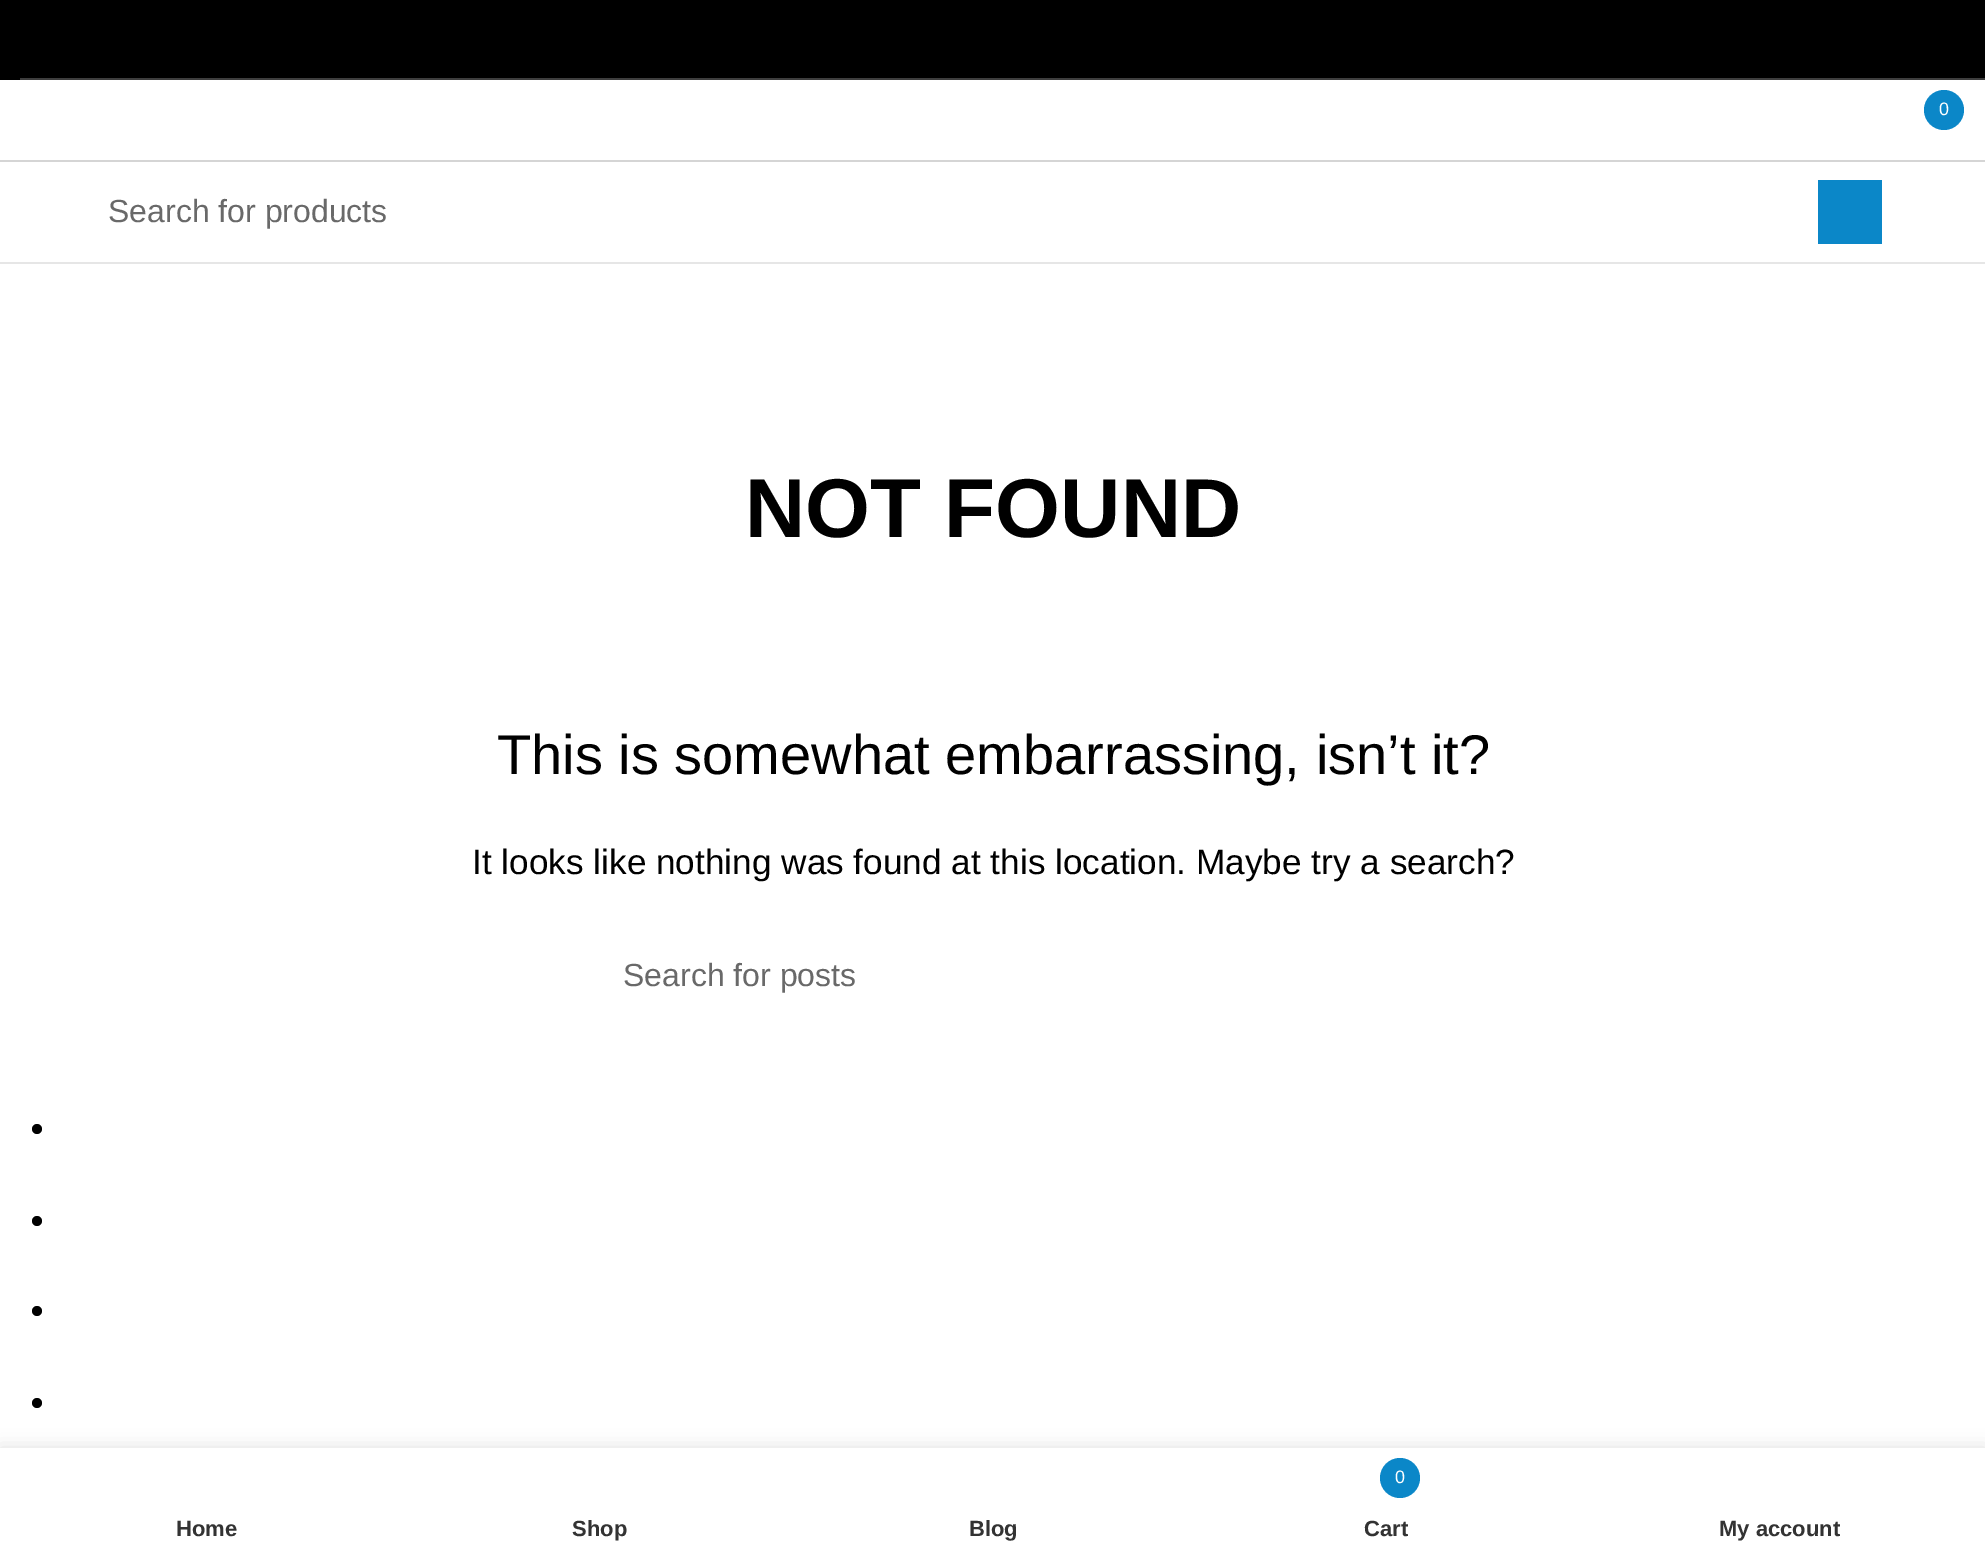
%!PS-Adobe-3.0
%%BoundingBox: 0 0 1985 1558
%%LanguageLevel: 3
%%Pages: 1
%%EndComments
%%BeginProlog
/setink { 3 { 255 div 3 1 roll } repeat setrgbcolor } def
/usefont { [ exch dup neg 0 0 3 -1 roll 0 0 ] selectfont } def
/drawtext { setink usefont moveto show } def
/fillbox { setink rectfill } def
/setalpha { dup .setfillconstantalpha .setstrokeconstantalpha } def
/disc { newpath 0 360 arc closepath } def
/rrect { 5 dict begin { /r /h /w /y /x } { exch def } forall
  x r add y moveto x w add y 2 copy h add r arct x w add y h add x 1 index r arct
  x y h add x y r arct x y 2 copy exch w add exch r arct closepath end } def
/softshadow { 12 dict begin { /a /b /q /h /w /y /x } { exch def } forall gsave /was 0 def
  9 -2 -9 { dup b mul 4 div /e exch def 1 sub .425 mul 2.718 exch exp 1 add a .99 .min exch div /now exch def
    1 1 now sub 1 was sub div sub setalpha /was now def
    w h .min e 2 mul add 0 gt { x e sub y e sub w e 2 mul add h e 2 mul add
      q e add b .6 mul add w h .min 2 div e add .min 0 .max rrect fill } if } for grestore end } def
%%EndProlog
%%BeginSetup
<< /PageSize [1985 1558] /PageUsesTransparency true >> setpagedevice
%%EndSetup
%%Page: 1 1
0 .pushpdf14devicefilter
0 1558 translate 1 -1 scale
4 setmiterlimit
0 0 1985 1558 255 255 255 fillbox
0 0 1985 80 0 0 0 fillbox
20 78 1965 2 64 64 64 fillbox
gsave
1 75 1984 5 rectclip
0 0 0 setink
0 82 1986 82 0 8 0.1 softshadow
grestore
0 160 1985 2 213 213 213 fillbox
11 135 200 setink
1944 110 20 disc fill
(0) 1939 115 /LiberationSans-Regular 18 255 255 255 drawtext
0 162 1985 12 255 255 255 fillbox
0 262 1985 2 230 230 230 fillbox
(Search for products) 108 222 /LiberationSans-Regular 32 105 105 105 drawtext
1818 180 64 64 11 135 200 fillbox
(NOT FOUND) 745 537 /LiberationSans-Bold 83.5 0 0 0 drawtext
(This is somewhat embarrassing, isn’t it?) 497 774 /LiberationSans-Regular 56 0 0 0 drawtext
(It looks like nothing was found at this location. Maybe try a search?) 472 874 /LiberationSans-Regular 35.2 0 0 0 drawtext
(Search for posts) 623 986 /LiberationSans-Regular 32 105 105 105 drawtext
0 0 0 setink
37 1129 5 disc fill
37 1221 5 disc fill
37 1311 5 disc fill
37 1403 5 disc fill
0 1448 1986 110 0 9 0.12 softshadow
0 1448 1985 110 255 255 255 fillbox
(Home) 176 1536 /LiberationSans-Bold 22 51 51 51 drawtext
(Shop) 572 1536 /LiberationSans-Bold 22 51 51 51 drawtext
(Blog) 969 1536 /LiberationSans-Bold 22 51 51 51 drawtext
11 135 200 setink
1400 1478 20 disc fill
(0) 1395 1483 /LiberationSans-Regular 18 255 255 255 drawtext
(Cart) 1364 1536 /LiberationSans-Bold 22 51 51 51 drawtext
(My account) 1719 1536 /LiberationSans-Bold 22 51 51 51 drawtext
.poppdf14devicefilter showpage
%%EOF
